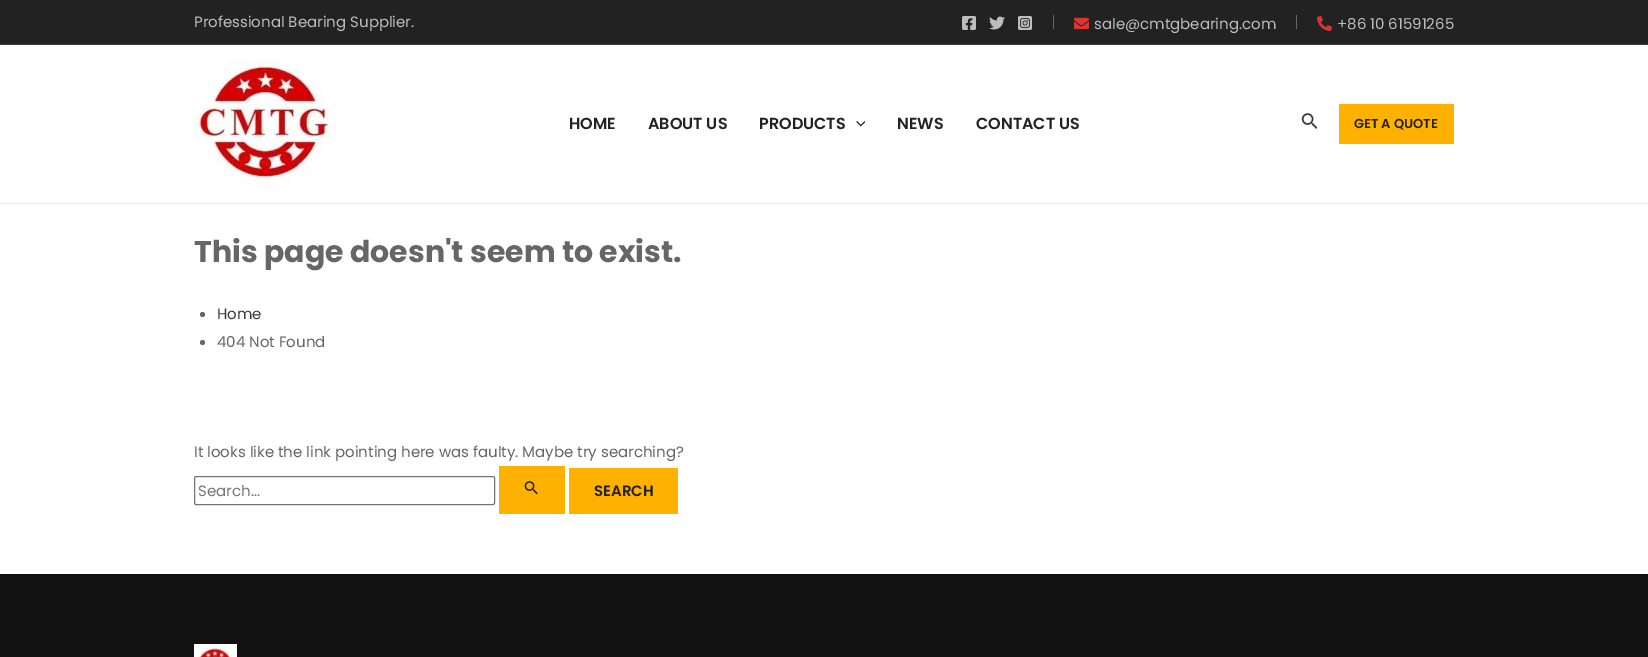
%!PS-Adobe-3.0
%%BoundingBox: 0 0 1648 657
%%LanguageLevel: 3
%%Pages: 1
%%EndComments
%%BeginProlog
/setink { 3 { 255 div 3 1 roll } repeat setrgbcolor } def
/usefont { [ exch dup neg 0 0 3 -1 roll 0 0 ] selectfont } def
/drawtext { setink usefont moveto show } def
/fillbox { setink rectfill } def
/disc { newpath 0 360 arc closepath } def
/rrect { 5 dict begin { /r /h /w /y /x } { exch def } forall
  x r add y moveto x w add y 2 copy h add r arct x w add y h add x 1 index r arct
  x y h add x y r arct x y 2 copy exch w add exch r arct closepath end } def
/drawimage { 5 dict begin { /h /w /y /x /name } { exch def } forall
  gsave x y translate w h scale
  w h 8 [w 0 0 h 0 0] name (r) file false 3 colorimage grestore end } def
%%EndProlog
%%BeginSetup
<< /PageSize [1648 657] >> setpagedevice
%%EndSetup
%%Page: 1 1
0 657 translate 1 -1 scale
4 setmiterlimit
0 0 1648 657 255 255 255 fillbox
0 0 1648 44 34 34 34 fillbox
0 44 1648 1 58 58 58 fillbox
(Professional Bearing Supplier.) 194 27 /Poppins-Regular 15 189 189 189 drawtext
(assets/img1.rgb) 962 16 14 14 drawimage
(assets/img2.rgb) 989 16 16 14 drawimage
(assets/img3.rgb) 1018 16 14 14 drawimage
1053 15 1 14 102 102 102 fillbox
(assets/img4.rgb) 1074 17 15 13 drawimage
(sale@cmtgbearing.com) 1094 29 /Poppins-Regular 15 189 189 189 drawtext
1296 15 1 14 102 102 102 fillbox
(assets/img5.rgb) 1317 16 15 15 drawimage
(+86 10 61591265) 1337 29 /Poppins-Regular 15 189 189 189 drawtext
0 203 1648 1 234 234 234 fillbox
(assets/img6.rgb) 194 60 142 128 drawimage
(HOME) 569 129 /Poppins-SemiBold 16 34 34 34 drawtext
(ABOUT US) 648 129 /Poppins-SemiBold 16 34 34 34 drawtext
(PRODUCTS) 759 129 /Poppins-SemiBold 16 34 34 34 drawtext
(assets/img7.rgb) 856 121 9 6 drawimage
(NEWS) 897 129 /Poppins-SemiBold 16 34 34 34 drawtext
(CONTACT US) 976 129 /Poppins-SemiBold 16 34 34 34 drawtext
(assets/img8.rgb) 1301 113 16 16 drawimage
1339 104 115 40 255 177 0 fillbox
(GET A QUOTE) 1354 128 /Poppins-SemiBold 13 34 34 34 drawtext
(This page doesn't seem to exist.) 194 262 /Poppins-Bold 30 102 102 102 drawtext
202.5 314.5 2.5 disc fill
(Home) 217 319 /Poppins-Regular 15 58 58 58 drawtext
102 102 102 setink
202.5 342.5 2.5 disc fill
(404 Not Found) 217 347 /Poppins-Regular 15 102 102 102 drawtext
(It looks like the link pointing here was faulty. Maybe try searching?) 194 457 /Poppins-Regular 15 102 102 102 drawtext
118 118 118 setink
194.5 476.5 300 28 1.5 rrect stroke
(Search...) 198 496 /Poppins-Regular 15 117 117 117 drawtext
499 466 66 48 255 177 0 fillbox
(assets/img9.rgb) 524 481 14 14 drawimage
569 468 109 46 255 177 0 fillbox
(SEARCH) 594 496 /Poppins-SemiBold 15 34 34 34 drawtext
0 574 1648 83 17 17 17 fillbox
(assets/img10.rgb) 194 644 43 13 drawimage
showpage
%%EOF
